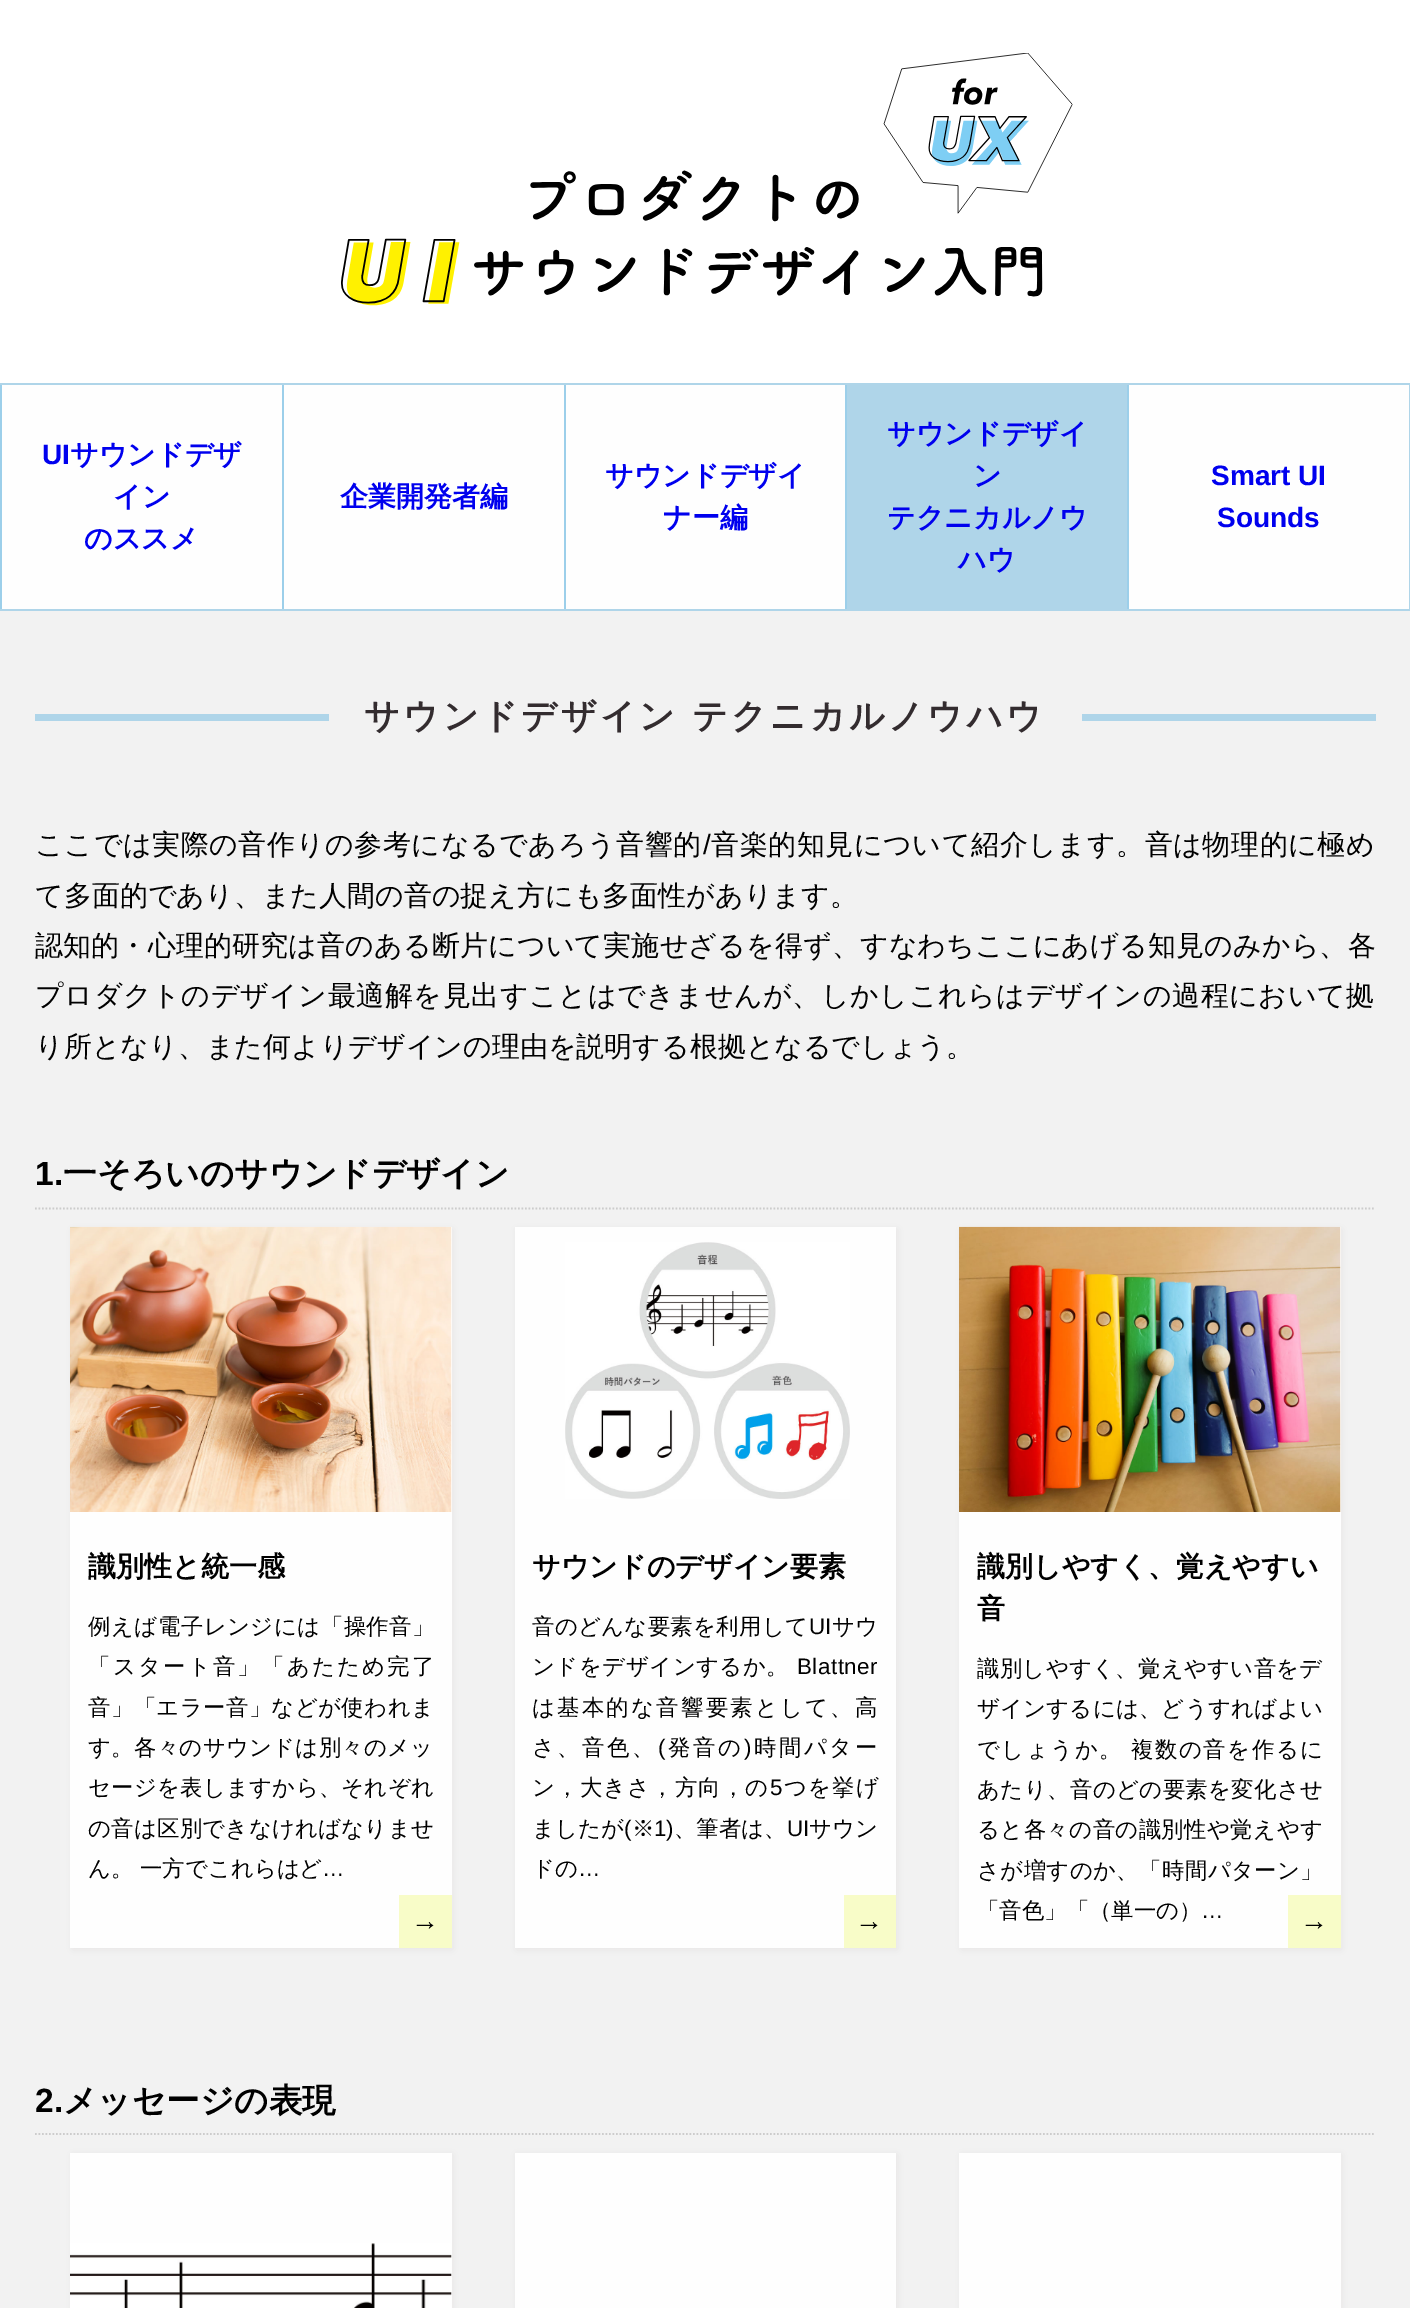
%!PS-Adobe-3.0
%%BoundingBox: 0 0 1410 2308
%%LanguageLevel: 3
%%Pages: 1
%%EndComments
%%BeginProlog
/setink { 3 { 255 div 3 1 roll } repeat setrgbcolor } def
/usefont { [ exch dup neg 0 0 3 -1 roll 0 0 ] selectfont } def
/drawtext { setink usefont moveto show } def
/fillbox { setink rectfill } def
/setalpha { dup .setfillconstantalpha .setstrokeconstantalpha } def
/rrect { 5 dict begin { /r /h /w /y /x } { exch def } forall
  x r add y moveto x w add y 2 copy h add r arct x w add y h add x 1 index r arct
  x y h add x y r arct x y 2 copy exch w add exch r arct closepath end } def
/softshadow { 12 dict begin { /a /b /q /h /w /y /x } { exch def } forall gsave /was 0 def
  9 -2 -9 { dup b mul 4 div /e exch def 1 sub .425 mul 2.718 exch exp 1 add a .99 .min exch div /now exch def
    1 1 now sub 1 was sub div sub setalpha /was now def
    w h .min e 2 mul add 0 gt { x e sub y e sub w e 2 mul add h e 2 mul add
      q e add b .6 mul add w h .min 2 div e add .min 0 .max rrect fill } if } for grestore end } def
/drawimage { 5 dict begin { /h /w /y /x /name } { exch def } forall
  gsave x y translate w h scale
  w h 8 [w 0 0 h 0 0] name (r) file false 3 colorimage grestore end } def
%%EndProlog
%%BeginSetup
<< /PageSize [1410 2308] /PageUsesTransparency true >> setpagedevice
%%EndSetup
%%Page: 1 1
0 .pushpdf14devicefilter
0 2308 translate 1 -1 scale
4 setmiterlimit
0 0 1410 2308 242 242 242 fillbox
0 0 1410 383 255 255 255 fillbox
(assets/img1.rgb) 341 53 732 253 drawimage
2 385 1407 224 254 254 254 fillbox
0 383 1410 2 175 213 233 fillbox
0 609 1410 2 175 213 233 fillbox
0 385 2 224 156 207 234 fillbox
(UI) 42 464 /LiberationSans-Bold 28 0 0 238 drawtext
(サウンドデザ) 70 464 /WenQuanYiZenHei-Bold 28 0 0 238 drawtext
(イン) 113 506 /WenQuanYiZenHei-Bold 28 0 0 238 drawtext
(のススメ) 84 548 /WenQuanYiZenHei-Bold 28 0 0 238 drawtext
282 385 2 224 156 207 234 fillbox
(企業開発者編) 340 506 /WenQuanYiZenHei-Bold 28 0 0 238 drawtext
564 385 2 224 156 207 234 fillbox
(サウンドデザイ) 605 485 /WenQuanYiZenHei-Bold 28 0 0 238 drawtext
(ナー編) 663 527 /WenQuanYiZenHei-Bold 28 0 0 238 drawtext
847 385 280 224 175 213 233 fillbox
845 385 2 224 156 207 234 fillbox
(サウンドデザイ) 887 443 /WenQuanYiZenHei-Bold 28 0 0 238 drawtext
(ン) 973 485 /WenQuanYiZenHei-Bold 28 0 0 238 drawtext
(テクニカルノウ) 887 527 /WenQuanYiZenHei-Bold 28 0 0 238 drawtext
(ハウ) 958 569 /WenQuanYiZenHei-Bold 28 0 0 238 drawtext
1409 385 1 224 175 213 233 fillbox
1127 385 2 224 156 207 234 fillbox
(Smart UI) 1211 485 /LiberationSans-Bold 28 0 0 238 drawtext
(Sounds) 1217 527 /LiberationSans-Bold 28 0 0 238 drawtext
35 714 1341 7 175 213 233 fillbox
329 714 753 7 242 242 242 fillbox
/WenQuanYiZenHei-Bold 35 usefont
51 44 47 setink
364 728 moveto -1 0 32 3.5 0 (サウンドデザイン テクニカルノウハウ) awidthshow
/WenQuanYiZenHei-Medium 28 usefont
0 0 0 setink
35 854 moveto 0.6 0 (ここでは実際の音作りの参考になるであろう音響的) ashow
/LiberationSans-Regular 28 usefont
703 854 moveto 0.6 0 (/) ashow
/WenQuanYiZenHei-Medium 28 usefont
711 854 moveto 0.6 0 (音楽的知見について紹介します。音は物理的に極め) ashow
(て多面的であり、また人間の音の捉え方にも多面性があります。) 35 905 /WenQuanYiZenHei-Medium 28 0 0 0 drawtext
35 955 moveto 0.15 0 (認知的・心理的研究は音のある断片について実施せざるを得ず、すなわちここにあげる知見のみから、各) ashow
35 1005 moveto 0.6 0 (プロダクトのデザイン最適解を見出すことはできませんが、しかしこれらはデザインの過程において拠) ashow
(り所となり、また何よりデザインの理由を説明する根拠となるでしょう。) 35 1056 /WenQuanYiZenHei-Medium 28 0 0 0 drawtext
204 204 204 setink
1.8 setlinewidth
[1.75 1.75] 0 setdash
35 1208.5 moveto 1375.5 1208.5 lineto stroke
(1.) 35 1185 /LiberationSans-Bold 33.6 0 0 0 drawtext
(一そろいのサウンドデザイン) 63 1185 /WenQuanYiZenHei-Bold 33.6 0 0 0 drawtext
231 230 230 setink
72 1229 381 721 0 4.5 1 softshadow
70 1227 382 721 254 254 254 fillbox
(assets/img2.rgb) 70 1226 382 286 drawimage
(識別性と統一感) 88 1576 /WenQuanYiZenHei-Bold 28 0 0 0 drawtext
/WenQuanYiZenHei-Medium 22.4 usefont
88 1634 moveto 0.5 0 (例えば電子レンジには「操作音」) ashow
88 1674 moveto 2.25 0 (「スタート音」「あたため完了) ashow
88 1715 moveto 0.4 0 (音」「エラー音」などが使われま) ashow
88 1755 moveto 0.3 0 (す。各々のサウンドは別々のメッ) ashow
88 1795 moveto 0.25 0 (セージを表しますから、それぞれ) ashow
88 1836 moveto 0.25 0 (の音は区別できなければなりませ) ashow
(ん。 一方でこれらはど) 88 1876 /WenQuanYiZenHei-Medium 22.4 0 0 0 drawtext
(…) 322 1876 /LiberationSans-Regular 22.4 0 0 0 drawtext
399 1895 53 53 248 252 200 fillbox
(→) 411 1930 /LiberationSans-Regular 28 0 0 0 drawtext
231 230 230 setink
516 1229 382 721 0 4.5 1 softshadow
515 1227 381 721 254 254 254 fillbox
(assets/img3.rgb) 565 1242 285 257 drawimage
(サウンドのデザイン要素) 532 1576 /WenQuanYiZenHei-Bold 28 0 0 0 drawtext
/WenQuanYiZenHei-Medium 22.4 usefont
532 1634 moveto 0.3 0 (音のどんな要素を利用して) ashow
/LiberationSans-Regular 22.4 usefont
809 1634 moveto 0.3 0 (UI) ashow
/WenQuanYiZenHei-Medium 22.4 usefont
832 1634 moveto 0.3 0 (サウ) ashow
532 1674 moveto 0.5 0 (ンドをデザインするか。) ashow
/LiberationSans-Regular 22.4 usefont
797 1674 moveto 0.5 0 (Blattner) ashow
/WenQuanYiZenHei-Medium 22.4 usefont
532 1715 moveto 2.25 0 (は基本的な音響要素として、高) ashow
532 1755 moveto 2.5 0 (さ、音色、) ashow
/LiberationSans-Regular 22.4 usefont
658 1755 moveto 2.5 0 (\() ashow
/WenQuanYiZenHei-Medium 22.4 usefont
668 1755 moveto 2.5 0 (発音の) ashow
/LiberationSans-Regular 22.4 usefont
744 1755 moveto 2.5 0 (\)) ashow
/WenQuanYiZenHei-Medium 22.4 usefont
754 1755 moveto 2.5 0 (時間パター) ashow
532 1795 moveto 1.1 0 (ン，大きさ，方向，の) ashow
/LiberationSans-Regular 22.4 usefont
770 1795 moveto 1.1 0 (5) ashow
/WenQuanYiZenHei-Medium 22.4 usefont
784 1795 moveto 1.1 0 (つを挙げ) ashow
(ましたが) 532 1836 /WenQuanYiZenHei-Medium 22.4 0 0 0 drawtext
(\() 624 1836 /LiberationSans-Regular 22.4 0 0 0 drawtext
(※) 632 1836 /WenQuanYiZenHei-Medium 22.4 0 0 0 drawtext
(1\)) 654 1836 /LiberationSans-Regular 22.4 0 0 0 drawtext
(、筆者は、) 674 1836 /WenQuanYiZenHei-Medium 22.4 0 0 0 drawtext
(UI) 787 1836 /LiberationSans-Regular 22.4 0 0 0 drawtext
(サウン) 809 1836 /WenQuanYiZenHei-Medium 22.4 0 0 0 drawtext
(ドの) 532 1876 /WenQuanYiZenHei-Medium 22.4 0 0 0 drawtext
(…) 578 1876 /LiberationSans-Regular 22.4 0 0 0 drawtext
844 1895 52 53 248 252 200 fillbox
(→) 855 1930 /LiberationSans-Regular 28 0 0 0 drawtext
231 230 230 setink
961 1229 381 721 0 4.5 1 softshadow
959 1227 382 721 254 254 254 fillbox
(assets/img4.rgb) 959 1226 382 286 drawimage
(識別しやすく、覚えやすい) 977 1576 /WenQuanYiZenHei-Bold 28 0 0 0 drawtext
(音) 977 1618 /WenQuanYiZenHei-Bold 28 0 0 0 drawtext
/WenQuanYiZenHei-Medium 22.4 usefont
977 1676 moveto 0.3 0 (識別しやすく、覚えやすい音をデ) ashow
977 1716 moveto 0.2 0 (ザインするには、どうすればよい) ashow
977 1757 moveto 1.5 0 (でしょうか。 複数の音を作るに) ashow
977 1797 moveto 0.4 0 (あたり、音のどの要素を変化させ) ashow
977 1837 moveto 0.4 0 (ると各々の音の識別性や覚えやす) ashow
977 1878 moveto 0.4 0 (さが増すのか、「時間パターン」) ashow
(「音色」「（単一の）) 977 1918 /WenQuanYiZenHei-Medium 22.4 0 0 0 drawtext
(…) 1201 1918 /LiberationSans-Regular 22.4 0 0 0 drawtext
1288 1895 53 53 248 252 200 fillbox
(→) 1300 1930 /LiberationSans-Regular 28 0 0 0 drawtext
204 204 204 setink
35 2134 moveto 1375.5 2134 lineto stroke
(2.) 35 2112 /LiberationSans-Bold 33.6 0 0 0 drawtext
(メッセージの表現) 63 2112 /WenQuanYiZenHei-Bold 33.6 0 0 0 drawtext
231 230 230 setink
72 2154 381 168 0 4.5 1 softshadow
70 2153 382 155 254 254 254 fillbox
(assets/img5.rgb) 70 2243 382 65 drawimage
231 230 230 setink
516 2154 382 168 0 4.5 1 softshadow
515 2153 381 155 254 254 254 fillbox
231 230 230 setink
961 2154 381 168 0 4.5 1 softshadow
959 2153 382 155 254 254 254 fillbox
.poppdf14devicefilter showpage
%%EOF
